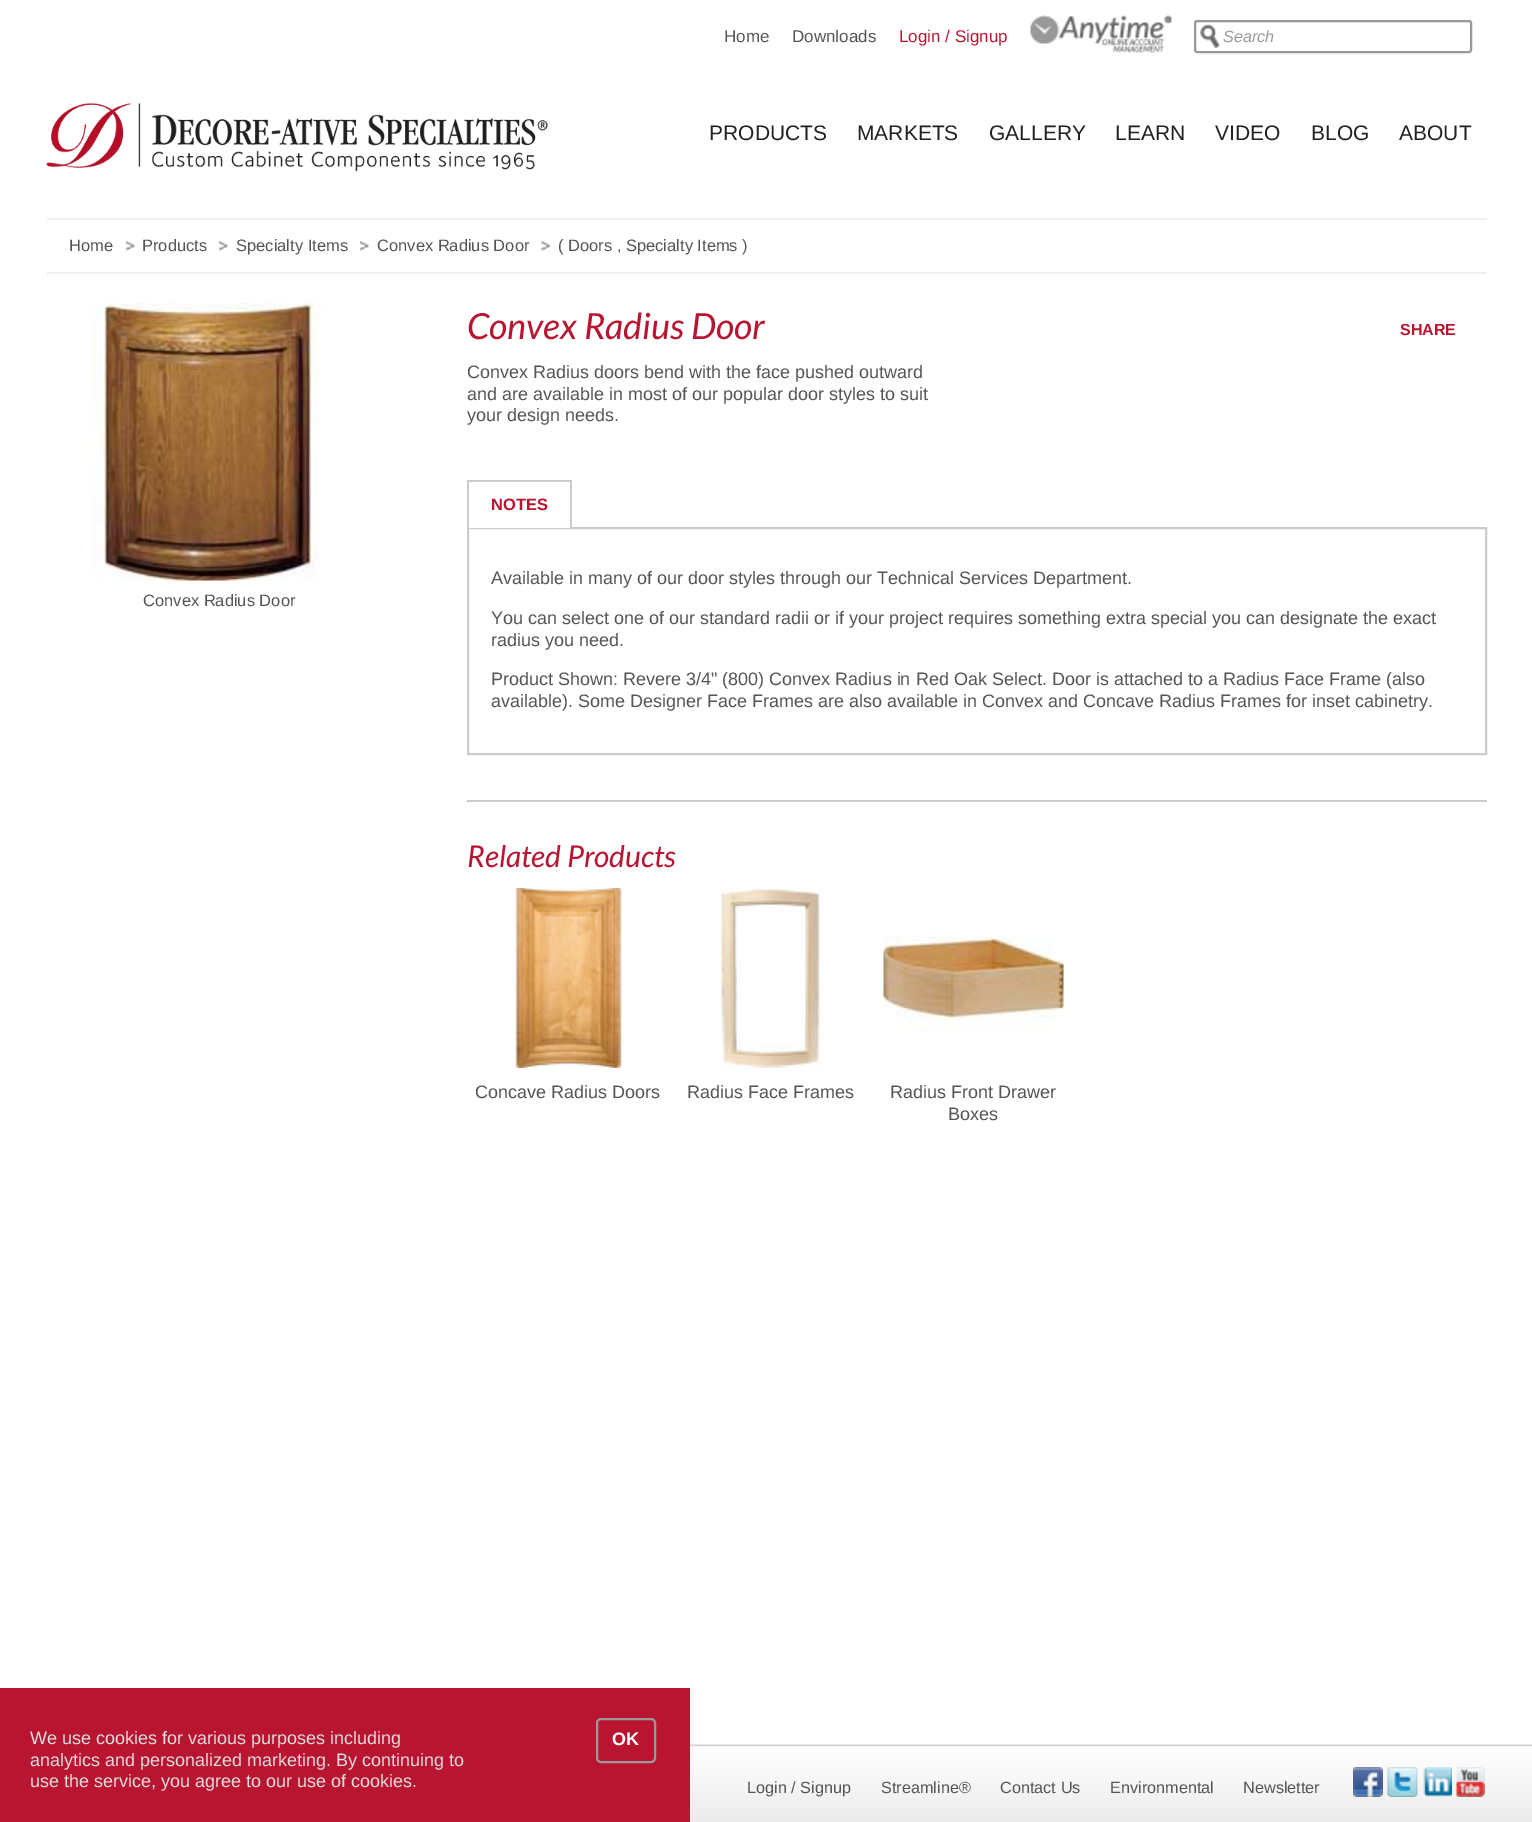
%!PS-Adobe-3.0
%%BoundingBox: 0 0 1532 1822
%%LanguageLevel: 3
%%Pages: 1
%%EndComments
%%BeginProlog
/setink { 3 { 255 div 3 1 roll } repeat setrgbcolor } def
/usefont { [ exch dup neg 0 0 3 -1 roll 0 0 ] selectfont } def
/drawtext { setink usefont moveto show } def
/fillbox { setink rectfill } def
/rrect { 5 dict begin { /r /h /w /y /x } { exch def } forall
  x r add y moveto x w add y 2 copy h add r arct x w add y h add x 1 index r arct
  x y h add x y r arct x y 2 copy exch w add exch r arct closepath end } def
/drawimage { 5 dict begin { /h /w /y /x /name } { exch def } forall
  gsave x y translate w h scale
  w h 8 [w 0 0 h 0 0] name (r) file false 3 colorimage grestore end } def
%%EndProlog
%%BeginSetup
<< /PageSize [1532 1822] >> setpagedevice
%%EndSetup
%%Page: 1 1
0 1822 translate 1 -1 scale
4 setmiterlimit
0 0 1532 1822 255 255 255 fillbox
(Home) 724 42 /LiberationSans-Regular 17 85 85 85 drawtext
(Downloads) 792 42 /LiberationSans-Regular 17 85 85 85 drawtext
(Login / Signup) 899 42 /LiberationSans-Regular 17 185 21 49 drawtext
(assets/img1.rgb) 1030 15 142 38 drawimage
(assets/img2.rgb) 1200 24 20 24 drawimage
153 153 153 setink
2 setlinewidth
1195 21 276 31 2 rrect stroke
(Search) 1223 42 /LiberationSans-Italic 16.25 153 153 153 drawtext
(assets/img3.rgb) 46 103 502 68 drawimage
(PRODUCTS) 709 140 /LiberationSans-Regular 21 34 34 34 drawtext
(MARKETS) 857 140 /LiberationSans-Regular 21 34 34 34 drawtext
(GALLERY) 989 140 /LiberationSans-Regular 21 34 34 34 drawtext
(LEARN) 1115 140 /LiberationSans-Regular 21 34 34 34 drawtext
(VIDEO) 1215 140 /LiberationSans-Regular 21 34 34 34 drawtext
(BLOG) 1311 140 /LiberationSans-Regular 21 34 34 34 drawtext
(ABOUT) 1399 140 /LiberationSans-Regular 21 34 34 34 drawtext
47 218 1440 2 239 239 239 fillbox
47 272 1440 2 239 239 239 fillbox
(Home) 69 251 /LiberationSans-Regular 16.5 85 85 85 drawtext
(assets/img4.rgb) 126 241 9 10 drawimage
(Products) 142 251 /LiberationSans-Regular 16.5 85 85 85 drawtext
(assets/img4.rgb) 219 241 9 10 drawimage
(Specialty Items) 236 251 /LiberationSans-Regular 16.5 85 85 85 drawtext
(assets/img5.rgb) 360 241 9 10 drawimage
(Convex Radius Door) 377 251 /LiberationSans-Regular 16.5 85 85 85 drawtext
(assets/img6.rgb) 541 241 10 10 drawimage
(\( Doors , Specialty Items \)) 558 251 /LiberationSans-Regular 16.5 85 85 85 drawtext
(assets/img7.rgb) 92 303 229 278 drawimage
(Convex Radius Door) 143 606 /LiberationSans-Regular 16.5 85 85 85 drawtext
(Convex Radius Door) 467 339 /Lato-Italic 36 185 21 49 drawtext
(Convex Radius doors bend with the face pushed outward) 467 378 /LiberationSans-Regular 18 85 85 85 drawtext
(and are available in most of our popular door styles to suit) 467 400 /LiberationSans-Regular 18 85 85 85 drawtext
(your design needs.) 467 421 /LiberationSans-Regular 18 85 85 85 drawtext
(SHARE) 1400 335 /LiberationSans-Bold 16 185 21 49 drawtext
204 204 204 setink
468 528 1018 226 rectstroke
469 527 101 1 255 255 255 fillbox
467 480 105 2 204 204 204 fillbox
570 480 2 48 204 204 204 fillbox
467 480 2 48 204 204 204 fillbox
(NOTES) 491 510 /LiberationSans-Bold 16.5 185 21 49 drawtext
(Available in many of our door styles through our Technical Services Department.) 491 584 /LiberationSans-Regular 18 85 85 85 drawtext
(You can select one of our standard radii or if your project requires something extra special you can designate the exact) 491 624 /LiberationSans-Regular 18 85 85 85 drawtext
(radius you need.) 491 646 /LiberationSans-Regular 18 85 85 85 drawtext
(Product Shown: Revere 3/4" \(800\) Convex Radius in Red Oak Select. Door is attached to a Radius Face Frame \(also) 491 685 /LiberationSans-Regular 18 85 85 85 drawtext
(available\). Some Designer Face Frames are also available in Convex and Concave Radius Frames for inset cabinetry.) 491 707 /LiberationSans-Regular 18 85 85 85 drawtext
467 800 1020 2 204 204 204 fillbox
(Related Products) 467 867 /Lato-Italic 30 185 21 49 drawtext
(assets/img8.rgb) 514 888 109 180 drawimage
(Concave Radius Doors) 475 1098 /LiberationSans-Regular 18 85 85 85 drawtext
(assets/img9.rgb) 719 888 106 180 drawimage
(Radius Face Frames) 687 1098 /LiberationSans-Regular 18 85 85 85 drawtext
(assets/img10.rgb) 883 936 181 96 drawimage
(Radius Front Drawer) 890 1098 /LiberationSans-Regular 18 85 85 85 drawtext
(Boxes) 948 1120 /LiberationSans-Regular 18 85 85 85 drawtext
0 1688 690 134 185 21 49 fillbox
(We use cookies for various purposes including) 30 1744 /LiberationSans-Regular 18 221 221 221 drawtext
(analytics and personalized marketing. By continuing to) 30 1766 /LiberationSans-Regular 18 221 221 221 drawtext
(use the service, you agree to our use of cookies.) 30 1787 /LiberationSans-Regular 18 221 221 221 drawtext
153 153 153 setink
597 1719 58 43 4 rrect stroke
(OK) 612 1745 /LiberationSans-Bold 18 255 255 255 drawtext
(assets/img11.rgb) 690 1744 842 78 drawimage
(Login / Signup) 747 1793 /LiberationSans-Regular 16.25 85 85 85 drawtext
(Streamline®) 881 1793 /LiberationSans-Regular 16.25 85 85 85 drawtext
(Contact Us) 1000 1793 /LiberationSans-Regular 16.25 85 85 85 drawtext
(Environmental) 1110 1793 /LiberationSans-Regular 16.25 85 85 85 drawtext
(Newsletter) 1243 1793 /LiberationSans-Regular 16.25 85 85 85 drawtext
(assets/img12.rgb) 1353 1767 30 30 drawimage
(assets/img13.rgb) 1387 1767 31 30 drawimage
(assets/img14.rgb) 1423 1767 29 30 drawimage
(assets/img15.rgb) 1456 1767 29 30 drawimage
showpage
%%EOF
